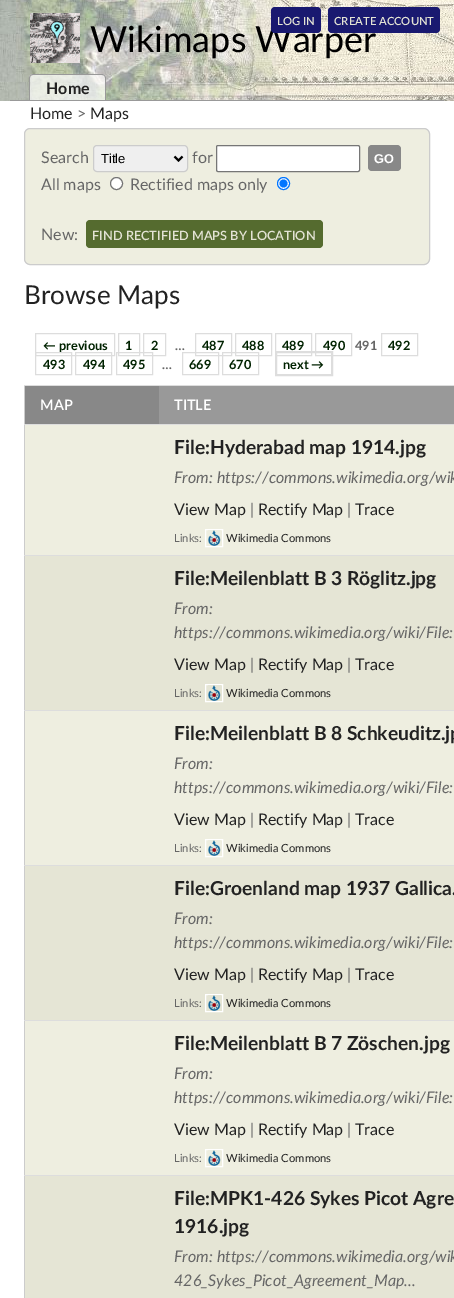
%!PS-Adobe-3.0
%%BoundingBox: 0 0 454 1298
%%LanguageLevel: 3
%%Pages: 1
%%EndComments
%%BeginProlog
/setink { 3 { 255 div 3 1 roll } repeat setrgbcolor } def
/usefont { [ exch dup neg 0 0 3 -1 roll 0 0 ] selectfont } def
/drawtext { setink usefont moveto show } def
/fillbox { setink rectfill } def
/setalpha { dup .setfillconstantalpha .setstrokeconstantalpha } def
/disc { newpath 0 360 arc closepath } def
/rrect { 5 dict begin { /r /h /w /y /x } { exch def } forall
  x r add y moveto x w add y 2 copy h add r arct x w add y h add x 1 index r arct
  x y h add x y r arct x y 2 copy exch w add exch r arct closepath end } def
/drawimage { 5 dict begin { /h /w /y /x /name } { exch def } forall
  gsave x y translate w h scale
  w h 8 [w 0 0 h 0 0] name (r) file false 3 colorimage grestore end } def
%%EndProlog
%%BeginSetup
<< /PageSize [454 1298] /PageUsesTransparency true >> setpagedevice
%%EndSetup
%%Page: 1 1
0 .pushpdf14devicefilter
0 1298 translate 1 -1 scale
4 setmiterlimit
0 0 454 1298 255 255 255 fillbox
(assets/img1.rgb) 0 0 454 101 drawimage
(Wikimaps Warper) 90 52 /Lato-Regular 36 0 0 0 drawtext
25 25 112 setink
271 7 50 26 4 rrect fill
(LOG IN) 277 25 /Lato-SemiBold 11.25 227 227 212 drawtext
25 25 112 setink
328 7 112 26 4 rrect fill
(CREATE ACCOUNT) 334 25 /Lato-SemiBold 11.25 227 227 212 drawtext
(assets/img2.rgb) 30 13 50 50 drawimage
10 100 434 1 153 153 153 fillbox
0.7 setalpha
255 255 255 setink
33 74 moveto 102 74 lineto 104 74 106 76 106 78 curveto 106 100 lineto 29 100 lineto 29 78 lineto 29 76 31 74 33 74 curveto closepath fill
1 setalpha
153 153 153 setink
33 74 moveto 102 74 lineto 104 74 106 76 106 78 curveto 106 100 lineto 29 100 lineto 29 78 lineto 29 76 31 74 33 74 curveto closepath 33 75 moveto 102 75 lineto 104 75 105 76 105 78 curveto 105 100 lineto 30 100 lineto 30 78 lineto 30 76 31 75 33 75 curveto closepath eofill
(Home) 46 94 /Lato-Bold 16 34 34 34 drawtext
(Home) 30 119 /Lato-Regular 16 34 34 34 drawtext
(>) 77 119 /Lato-Regular 16 102 102 102 drawtext
(Maps) 90 119 /Lato-Regular 16 34 34 34 drawtext
238 238 224 setink
24.5 128.5 405 136 5.5 rrect gsave fill grestore
204 204 204 setink
stroke
(Search) 41 163 /Lato-Regular 16 102 102 102 drawtext
239 239 239 setink
93.5 145.5 94 26 3.5 rrect gsave fill grestore
204 204 204 setink
stroke
0 0 0 setink
2 setlinewidth
174.5 156.5 moveto 178.5 160.5 lineto 182.5 156.5 lineto stroke
(Title) 101 163 /LiberationSans-Regular 13 0 0 0 drawtext
(for) 192 163 /Lato-Regular 16 102 102 102 drawtext
255 255 255 setink
216.5 145.5 143 26 1.5 rrect gsave fill grestore
118 118 118 setink
1 setlinewidth
stroke
136 136 136 setink
368 145 33 26 4 rrect fill
(GO) 374 163 /LiberationSans-Bold 12.75 255 255 255 drawtext
(All maps) 41 190 /Lato-Regular 16 102 102 102 drawtext
255 255 255 setink
116.5 183.5 6 disc gsave fill grestore
118 118 118 setink
stroke
(Rectified maps only) 130 190 /Lato-Regular 16 102 102 102 drawtext
255 255 255 setink
283.5 183.5 6 disc gsave fill grestore
0 117 255 setink
stroke
283.5 183.5 4 disc fill
(New:) 41 240 /Lato-Regular 16 102 102 102 drawtext
85 107 47 setink
86 220 237 28 4 rrect fill
(FIND RECTIFIED MAPS BY LOCATION) 92 240 /Lato-SemiBold 12.75 227 227 212 drawtext
(Browse Maps) 24 304 /Lato-Regular 26 34 34 34 drawtext
221 221 221 setink
35.5 333.5 79 22 rectstroke
(← previous) 43 350 /Lato-Bold 12.75 0 34 0 drawtext
221 221 221 setink
118.5 333.5 21 22 rectstroke
(1) 125 350 /Lato-Bold 12.75 0 34 0 drawtext
221 221 221 setink
143.5 333.5 22 22 rectstroke
(2) 151 350 /Lato-Bold 12.75 0 34 0 drawtext
(…) 175 350 /Lato-Bold 12.75 102 102 102 drawtext
221 221 221 setink
195.5 333.5 36 22 rectstroke
(487) 202 350 /Lato-Bold 12.75 0 34 0 drawtext
221 221 221 setink
235.5 333.5 36 22 rectstroke
(488) 242 350 /Lato-Bold 12.75 0 34 0 drawtext
221 221 221 setink
275.5 333.5 36 22 rectstroke
(489) 282 350 /Lato-Bold 12.75 0 34 0 drawtext
221 221 221 setink
315.5 333.5 36 22 rectstroke
(490) 323 350 /Lato-Bold 12.75 0 34 0 drawtext
(491) 355 350 /Lato-Bold 12.75 102 102 102 drawtext
221 221 221 setink
381.5 333.5 36 22 rectstroke
(492) 388 350 /Lato-Bold 12.75 0 34 0 drawtext
221 221 221 setink
35.5 352.5 36 22 rectstroke
(493) 43 369 /Lato-Bold 12.75 0 34 0 drawtext
221 221 221 setink
75.5 352.5 36 22 rectstroke
(494) 83 369 /Lato-Bold 12.75 0 34 0 drawtext
221 221 221 setink
116.5 352.5 36 22 rectstroke
(495) 123 369 /Lato-Bold 12.75 0 34 0 drawtext
(…) 162 369 /Lato-Bold 12.75 102 102 102 drawtext
221 221 221 setink
182.5 352.5 36 22 rectstroke
(669) 189 369 /Lato-Bold 12.75 0 34 0 drawtext
221 221 221 setink
222.5 352.5 36 22 rectstroke
(670) 229 369 /Lato-Bold 12.75 0 34 0 drawtext
221 221 221 setink
2 setlinewidth
276 352 56 23 rectstroke
(next →) 283 369 /Lato-Bold 12.75 0 34 0 drawtext
24 385 1 913 204 204 204 fillbox
25 386 134 38 136 136 136 fillbox
(MAP) 40 410 /Lato-SemiBold 14.5 255 255 255 drawtext
159 386 295 38 153 153 153 fillbox
24 385 430 1 221 221 221 fillbox
(TITLE) 174 410 /Lato-SemiBold 14.5 255 255 255 drawtext
25 425 429 130 238 238 224 fillbox
24 424 430 1 221 221 221 fillbox
(File:Hyderabad map 1914.jpg) 174 454 /Lato-Bold 19.25 34 34 34 drawtext
(From: https://commons.wikimedia.org/wik) 174 483 /Lato-Italic 16 102 102 102 drawtext
(View Map) 174 515 /Lato-Regular 16 34 34 34 drawtext
(|) 250 515 /Lato-Regular 16 102 102 102 drawtext
(Rectify Map) 258 515 /Lato-Regular 16 34 34 34 drawtext
(|) 347 515 /Lato-Regular 16 102 102 102 drawtext
(Trace) 355 515 /Lato-Regular 16 34 34 34 drawtext
(Links:) 174 542 /Lato-Regular 11.25 102 102 102 drawtext
255 255 255 setink
1 setlinewidth
205.5 529.5 17 17 rectstroke
(assets/img3.rgb) 208 530 13 16 drawimage
(Wikimedia Commons) 226 542 /Lato-Regular 11.25 34 34 34 drawtext
25 556 429 154 229 229 213 fillbox
24 555 430 1 221 221 221 fillbox
(File:Meilenblatt B 3 Röglitz.jpg) 174 585 /Lato-Bold 19.25 34 34 34 drawtext
(From:) 174 614 /Lato-Italic 16 102 102 102 drawtext
(https://commons.wikimedia.org/wiki/File:) 174 638 /Lato-Italic 16 102 102 102 drawtext
(View Map) 174 670 /Lato-Regular 16 34 34 34 drawtext
(|) 250 670 /Lato-Regular 16 102 102 102 drawtext
(Rectify Map) 258 670 /Lato-Regular 16 34 34 34 drawtext
(|) 347 670 /Lato-Regular 16 102 102 102 drawtext
(Trace) 355 670 /Lato-Regular 16 34 34 34 drawtext
(Links:) 174 697 /Lato-Regular 11.25 102 102 102 drawtext
255 255 255 setink
205.5 684.5 17 17 rectstroke
(assets/img4.rgb) 208 685 13 16 drawimage
(Wikimedia Commons) 226 697 /Lato-Regular 11.25 34 34 34 drawtext
25 711 429 154 238 238 224 fillbox
24 710 430 1 221 221 221 fillbox
(File:Meilenblatt B 8 Schkeuditz.jp) 174 740 /Lato-Bold 19.25 34 34 34 drawtext
(From:) 174 769 /Lato-Italic 16 102 102 102 drawtext
(https://commons.wikimedia.org/wiki/File:) 174 793 /Lato-Italic 16 102 102 102 drawtext
(View Map) 174 825 /Lato-Regular 16 34 34 34 drawtext
(|) 250 825 /Lato-Regular 16 102 102 102 drawtext
(Rectify Map) 258 825 /Lato-Regular 16 34 34 34 drawtext
(|) 347 825 /Lato-Regular 16 102 102 102 drawtext
(Trace) 355 825 /Lato-Regular 16 34 34 34 drawtext
(Links:) 174 852 /Lato-Regular 11.25 102 102 102 drawtext
255 255 255 setink
205.5 839.5 17 17 rectstroke
(assets/img3.rgb) 208 840 13 16 drawimage
(Wikimedia Commons) 226 852 /Lato-Regular 11.25 34 34 34 drawtext
25 866 429 154 229 229 213 fillbox
24 865 430 1 221 221 221 fillbox
(File:Groenland map 1937 Gallica.) 174 895 /Lato-Bold 19.25 34 34 34 drawtext
(From:) 174 924 /Lato-Italic 16 102 102 102 drawtext
(https://commons.wikimedia.org/wiki/File:) 174 948 /Lato-Italic 16 102 102 102 drawtext
(View Map) 174 980 /Lato-Regular 16 34 34 34 drawtext
(|) 250 980 /Lato-Regular 16 102 102 102 drawtext
(Rectify Map) 258 980 /Lato-Regular 16 34 34 34 drawtext
(|) 347 980 /Lato-Regular 16 102 102 102 drawtext
(Trace) 355 980 /Lato-Regular 16 34 34 34 drawtext
(Links:) 174 1007 /Lato-Regular 11.25 102 102 102 drawtext
255 255 255 setink
205.5 994.5 17 17 rectstroke
(assets/img4.rgb) 208 995 13 16 drawimage
(Wikimedia Commons) 226 1007 /Lato-Regular 11.25 34 34 34 drawtext
25 1021 429 154 238 238 224 fillbox
24 1020 430 1 221 221 221 fillbox
(File:Meilenblatt B 7 Zöschen.jpg) 174 1050 /Lato-Bold 19.25 34 34 34 drawtext
(From:) 174 1079 /Lato-Italic 16 102 102 102 drawtext
(https://commons.wikimedia.org/wiki/File:) 174 1103 /Lato-Italic 16 102 102 102 drawtext
(View Map) 174 1135 /Lato-Regular 16 34 34 34 drawtext
(|) 250 1135 /Lato-Regular 16 102 102 102 drawtext
(Rectify Map) 258 1135 /Lato-Regular 16 34 34 34 drawtext
(|) 347 1135 /Lato-Regular 16 102 102 102 drawtext
(Trace) 355 1135 /Lato-Regular 16 34 34 34 drawtext
(Links:) 174 1162 /Lato-Regular 11.25 102 102 102 drawtext
255 255 255 setink
205.5 1149.5 17 17 rectstroke
(assets/img3.rgb) 208 1150 13 16 drawimage
(Wikimedia Commons) 226 1162 /Lato-Regular 11.25 34 34 34 drawtext
25 1176 429 122 229 229 213 fillbox
24 1175 430 1 221 221 221 fillbox
(File:MPK1-426 Sykes Picot Agre) 174 1205 /Lato-Bold 19.25 34 34 34 drawtext
(1916.jpg) 174 1233 /Lato-Bold 19.25 34 34 34 drawtext
(From: https://commons.wikimedia.org/wik) 174 1262 /Lato-Italic 16 102 102 102 drawtext
(426_Sykes_Picot_Agreement_Map...) 174 1286 /Lato-Italic 16 102 102 102 drawtext
.poppdf14devicefilter showpage
%%EOF
